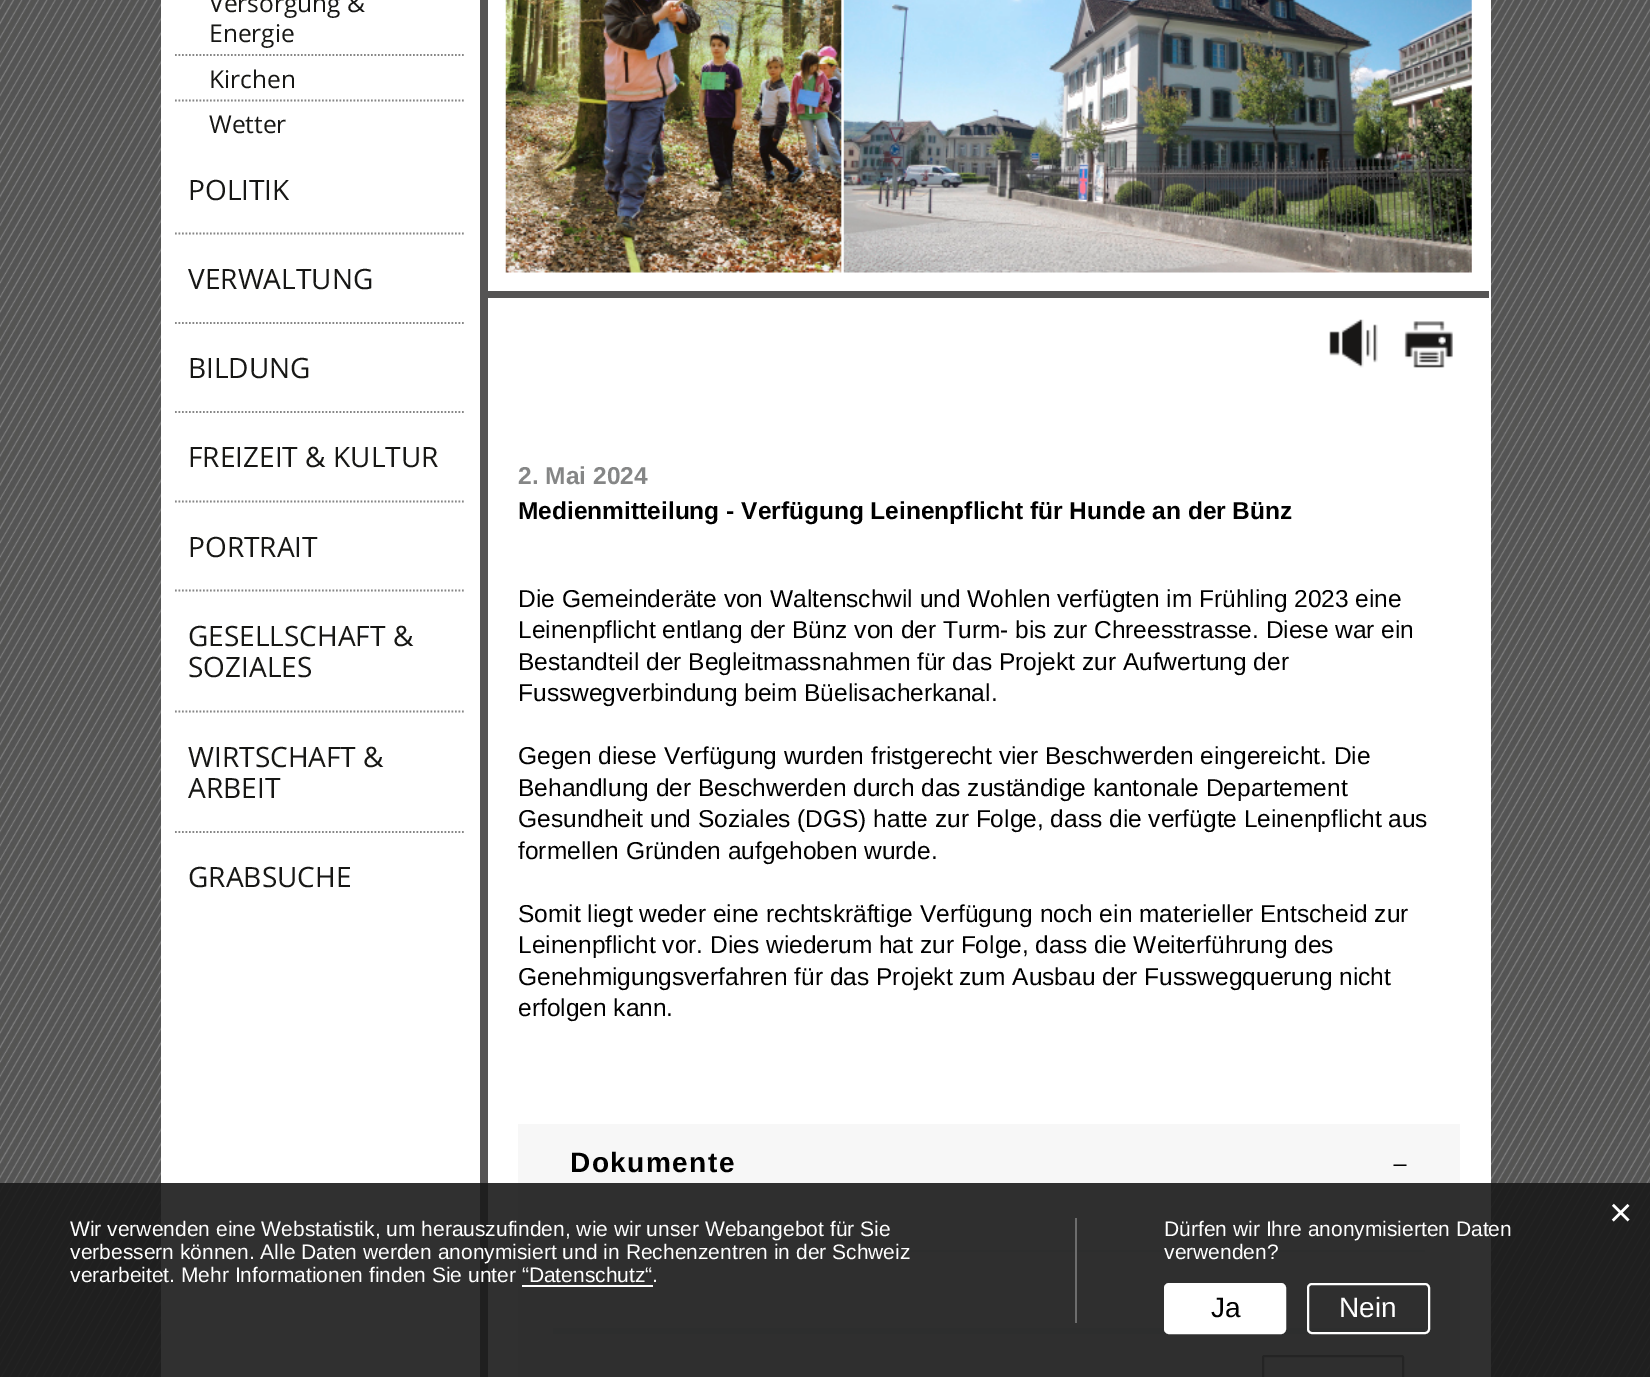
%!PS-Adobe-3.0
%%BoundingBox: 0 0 1650 1377
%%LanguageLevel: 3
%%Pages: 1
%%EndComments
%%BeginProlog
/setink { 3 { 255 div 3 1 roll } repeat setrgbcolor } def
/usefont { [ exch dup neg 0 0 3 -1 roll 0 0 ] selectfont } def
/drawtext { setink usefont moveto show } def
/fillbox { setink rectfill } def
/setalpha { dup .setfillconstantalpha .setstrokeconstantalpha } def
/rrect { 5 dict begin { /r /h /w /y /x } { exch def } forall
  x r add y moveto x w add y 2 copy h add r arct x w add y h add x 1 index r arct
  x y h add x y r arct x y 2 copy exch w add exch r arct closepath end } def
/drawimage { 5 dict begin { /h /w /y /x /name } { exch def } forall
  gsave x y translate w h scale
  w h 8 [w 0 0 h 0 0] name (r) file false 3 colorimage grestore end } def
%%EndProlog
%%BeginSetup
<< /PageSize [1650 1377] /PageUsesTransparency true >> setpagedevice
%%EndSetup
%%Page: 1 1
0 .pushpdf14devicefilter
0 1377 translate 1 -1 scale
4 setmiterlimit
0 0 1650 1377 255 255 255 fillbox
(assets/img1.rgb) 0 0 1650 1377 drawimage
161 0 1330 1377 255 255 255 fillbox
134 134 134 setink
1.8 setlinewidth
[1.75 1.75] 0 setdash
175 55 moveto 465.5 55 lineto stroke
(Versorgung &) 209 12 /OpenSans-Regular 24.5 23 23 21 drawtext
(Energie) 209 42 /OpenSans-Regular 24.5 23 23 21 drawtext
134 134 134 setink
175 100.5 moveto 465.5 100.5 lineto stroke
(Kirchen) 209 88 /OpenSans-Regular 24.5 23 23 21 drawtext
(Wetter) 209 133 /OpenSans-Regular 24.5 23 23 21 drawtext
134 134 134 setink
175 233.5 moveto 465.5 233.5 lineto stroke
(POLITIK) 188 200 /OpenSans-Regular 28 23 23 21 drawtext
134 134 134 setink
175 323 moveto 465.5 323 lineto stroke
(VERWALTUNG) 188 289 /OpenSans-Regular 28 23 23 21 drawtext
134 134 134 setink
175 412 moveto 465.5 412 lineto stroke
(BILDUNG) 188 378 /OpenSans-Regular 28 23 23 21 drawtext
134 134 134 setink
175 501.5 moveto 465.5 501.5 lineto stroke
(FREIZEIT & KULTUR) 188 467 /OpenSans-Regular 28 23 23 21 drawtext
134 134 134 setink
175 590.5 moveto 465.5 590.5 lineto stroke
(PORTRAIT) 188 557 /OpenSans-Regular 28 23 23 21 drawtext
134 134 134 setink
175 711.5 moveto 465.5 711.5 lineto stroke
(GESELLSCHAFT &) 188 646 /OpenSans-Regular 28 23 23 21 drawtext
(SOZIALES) 188 677 /OpenSans-Regular 28 23 23 21 drawtext
134 134 134 setink
175 832 moveto 465.5 832 lineto stroke
(WIRTSCHAFT &) 188 767 /OpenSans-Regular 28 23 23 21 drawtext
(ARBEIT) 188 798 /OpenSans-Regular 28 23 23 21 drawtext
(GRABSUCHE) 188 887 /OpenSans-Regular 28 23 23 21 drawtext
480 0 8 1377 85 84 84 fillbox
488 291 1001 7 85 84 84 fillbox
(assets/img2.rgb) 505 0 967 273 drawimage
(assets/img3.rgb) 1329 319 49 49 drawimage
(assets/img4.rgb) 1404 321 49 47 drawimage
(2. Mai 2024) 518 484 /LiberationSans-Bold 24.5 133 134 134 drawtext
(Medienmitteilung - Verfügung Leinenpflicht für Hunde an der Bünz) 518 519 /LiberationSans-Bold 24.5 0 0 0 drawtext
(Die Gemeinderäte von Waltenschwil und Wohlen verfügten im Frühling 2023 eine) 518 607 /LiberationSans-Regular 24.5 0 0 0 drawtext
(Leinenpflicht entlang der Bünz von der Turm- bis zur Chreesstrasse. Diese war ein) 518 638 /LiberationSans-Regular 24.5 0 0 0 drawtext
(Bestandteil der Begleitmassnahmen für das Projekt zur Aufwertung der) 518 670 /LiberationSans-Regular 24.5 0 0 0 drawtext
(Fusswegverbindung beim Büelisacherkanal.) 518 701 /LiberationSans-Regular 24.5 0 0 0 drawtext
(Gegen diese Verfügung wurden fristgerecht vier Beschwerden eingereicht. Die) 518 764 /LiberationSans-Regular 24.5 0 0 0 drawtext
(Behandlung der Beschwerden durch das zuständige kantonale Departement) 518 796 /LiberationSans-Regular 24.5 0 0 0 drawtext
(Gesundheit und Soziales \(DGS\) hatte zur Folge, dass die verfügte Leinenpflicht aus) 518 827 /LiberationSans-Regular 24.5 0 0 0 drawtext
(formellen Gründen aufgehoben wurde.) 518 859 /LiberationSans-Regular 24.5 0 0 0 drawtext
(Somit liegt weder eine rechtskräftige Verfügung noch ein materieller Entscheid zur) 518 922 /LiberationSans-Regular 24.5 0 0 0 drawtext
(Leinenpflicht vor. Dies wiederum hat zur Folge, dass die Weiterführung des) 518 953 /LiberationSans-Regular 24.5 0 0 0 drawtext
(Genehmigungsverfahren für das Projekt zum Ausbau der Fusswegquerung nicht) 518 985 /LiberationSans-Regular 24.5 0 0 0 drawtext
(erfolgen kann.) 518 1016 /LiberationSans-Regular 24.5 0 0 0 drawtext
518 1124 942 253 247 247 247 fillbox
/LiberationSans-Bold 28 usefont
0 0 0 setink
570 1172 moveto 1.5 0 (Dokumente) ashow
/LiberationSerif-Regular 28 usefont
gsave 1408 1156 translate 180 rotate 0 0 moveto 1.5 0 (−) ashow grestore
553 1250 872 2 230 236 238 fillbox
553 1328 612 4 230 236 238 fillbox
1285 1328 140 4 230 236 238 fillbox
553 1332 616 2 230 236 238 fillbox
1281 1332 31 2 230 236 238 fillbox
133 134 134 setink
2 setlinewidth
[] 0 setdash
1263 1356 140 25 1.5 rrect stroke
0.9 setalpha
0 1183 1650 194 25 25 25 fillbox
1 setalpha
(×) 1609 1226 /LiberationSans-Regular 40 255 255 255 drawtext
1075 1218 2 105 109 109 109 fillbox
(Wir verwenden eine Webstatistik, um herauszufinden, wie wir unser Webangebot für Sie) 70 1236 /LiberationSans-Regular 21 255 255 255 drawtext
(verbessern können. Alle Daten werden anonymisiert und in Rechenzentren in der Schweiz) 70 1259 /LiberationSans-Regular 21 255 255 255 drawtext
(verarbeitet. Mehr Informationen finden Sie unter “Datenschutz“.) 70 1282 /LiberationSans-Regular 21 255 255 255 drawtext
522 1285 131 2 255 255 255 fillbox
(Dürfen wir Ihre anonymisierten Daten) 1164 1236 /LiberationSans-Regular 21 255 255 255 drawtext
(verwenden?) 1164 1259 /LiberationSans-Regular 21 255 255 255 drawtext
1165 1284 120 49 4 rrect gsave fill grestore
stroke
(Ja) 1211 1317 /LiberationSans-Regular 28 0 0 0 drawtext
255 255 255 setink
1308 1284 121 49 4 rrect stroke
(Nein) 1339 1317 /LiberationSans-Regular 28 255 255 255 drawtext
.poppdf14devicefilter showpage
%%EOF
